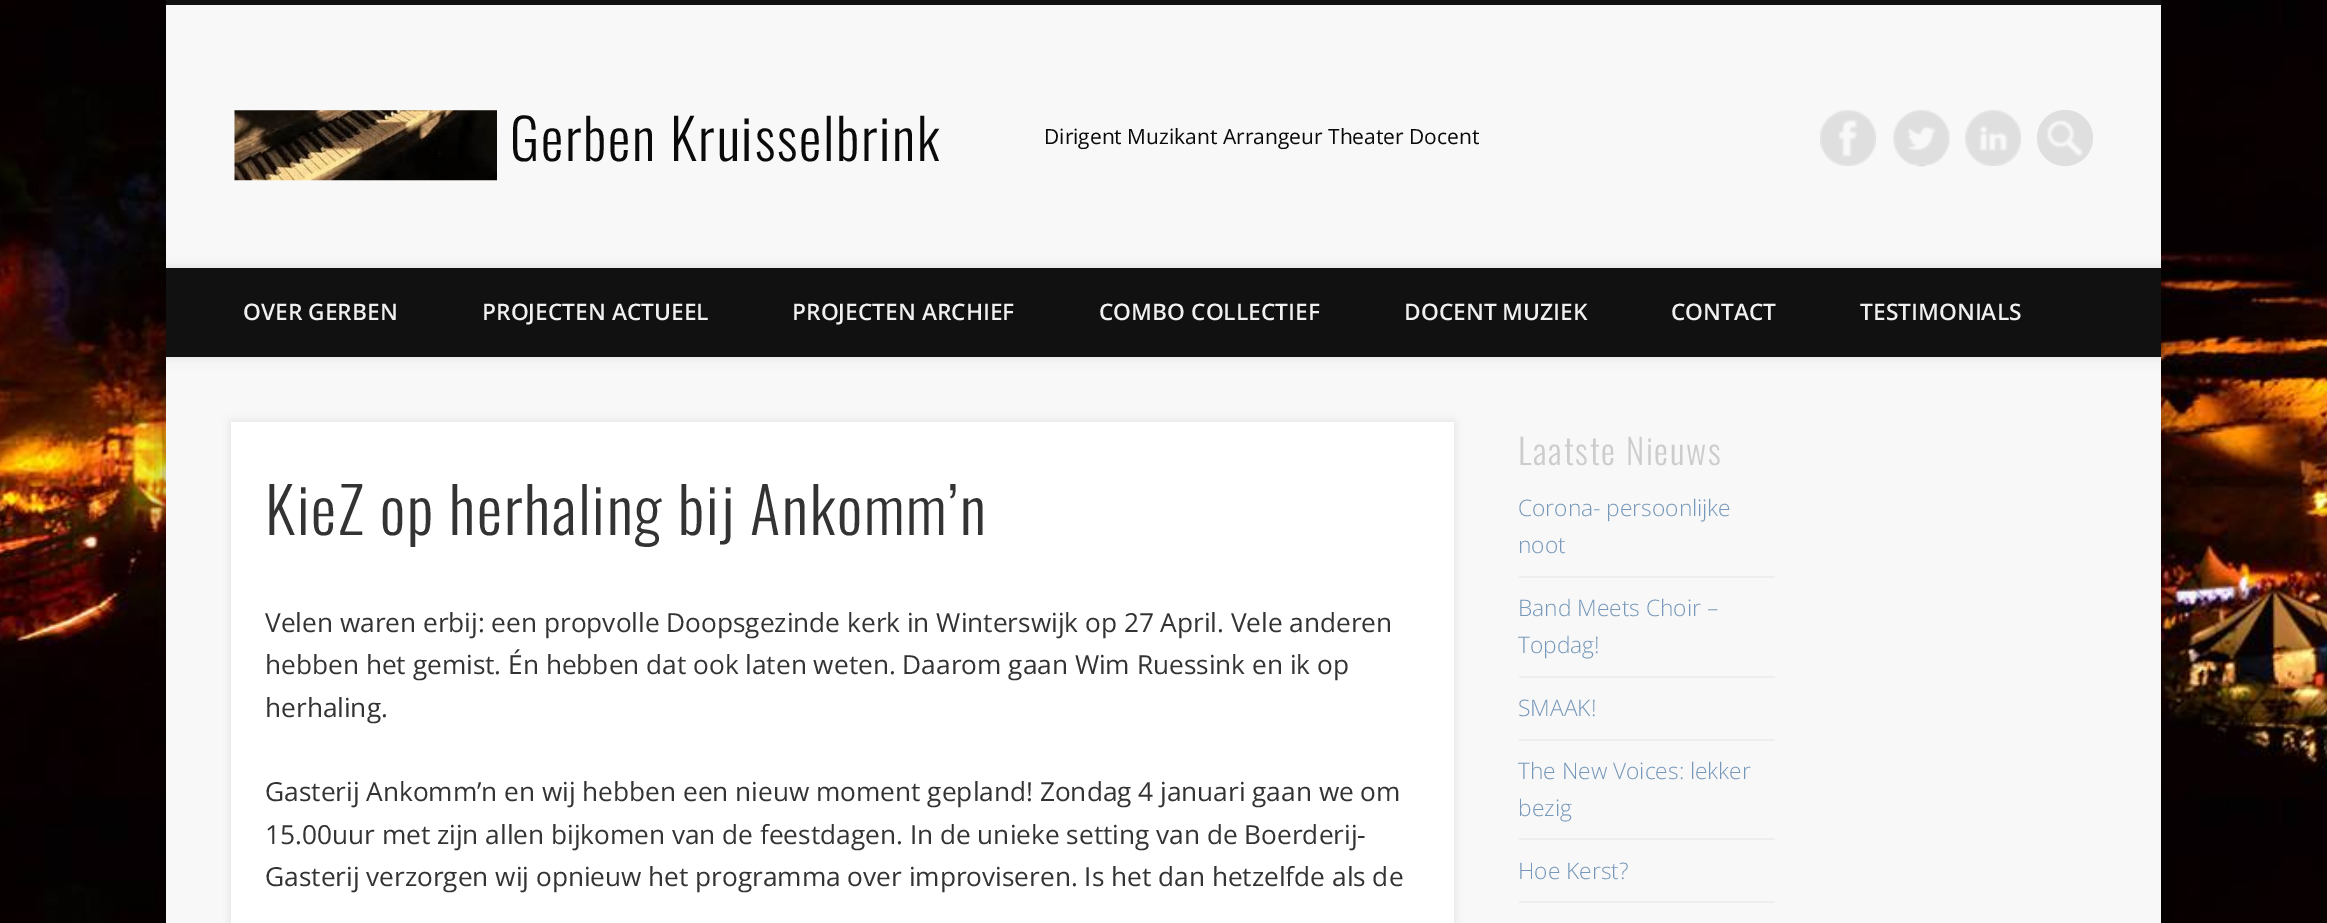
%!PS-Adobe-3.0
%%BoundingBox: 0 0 2327 923
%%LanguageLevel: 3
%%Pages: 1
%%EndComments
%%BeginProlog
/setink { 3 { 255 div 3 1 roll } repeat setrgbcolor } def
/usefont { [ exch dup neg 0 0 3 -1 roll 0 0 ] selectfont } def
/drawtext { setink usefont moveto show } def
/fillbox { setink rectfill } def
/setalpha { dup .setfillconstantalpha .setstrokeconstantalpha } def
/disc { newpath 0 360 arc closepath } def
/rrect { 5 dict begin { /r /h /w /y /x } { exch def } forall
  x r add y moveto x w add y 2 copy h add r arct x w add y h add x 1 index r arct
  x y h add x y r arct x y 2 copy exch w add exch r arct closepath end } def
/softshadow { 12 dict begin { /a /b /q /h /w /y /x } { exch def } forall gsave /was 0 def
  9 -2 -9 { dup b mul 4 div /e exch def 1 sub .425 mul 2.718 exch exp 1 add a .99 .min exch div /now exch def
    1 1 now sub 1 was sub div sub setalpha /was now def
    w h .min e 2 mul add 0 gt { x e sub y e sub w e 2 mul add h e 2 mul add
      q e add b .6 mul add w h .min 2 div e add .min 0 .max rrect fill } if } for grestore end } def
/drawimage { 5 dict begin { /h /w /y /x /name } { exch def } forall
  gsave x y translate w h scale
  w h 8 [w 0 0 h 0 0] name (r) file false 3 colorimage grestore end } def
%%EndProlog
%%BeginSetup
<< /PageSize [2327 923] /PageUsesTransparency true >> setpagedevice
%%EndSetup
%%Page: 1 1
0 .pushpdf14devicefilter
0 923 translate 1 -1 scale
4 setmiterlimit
0 0 2327 923 255 255 255 fillbox
(assets/img1.rgb) 0 0 2327 923 drawimage
0 0 0 setink
166 0 1995 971 0 16 0.4 softshadow
166 5 1995 918 248 248 248 fillbox
166 0 1995 5 17 17 17 fillbox
(assets/img2.rgb) 234 110 263 71 drawimage
/Oswald-Light 56 usefont
10 10 10 setink
510 161 moveto 1.75 0 (Gerben Kruisselbrink) ashow
(Dirigent Muzikant Arrangeur Theater Docent) 1044 144 /OpenSans-Regular 21 10 10 10 drawtext
(assets/img3.rgb) 1820 110 56 56 drawimage
(assets/img4.rgb) 1893 110 57 57 drawimage
(assets/img5.rgb) 1965 110 56 56 drawimage
223 223 223 setink
2065 138 28 disc fill
(assets/img6.rgb) 2047 120 36 36 drawimage
gsave
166 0 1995 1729 rectclip
0 0 0 setink
166 268 1995 89 0 6 0.1 softshadow
grestore
166 268 1995 89 17 17 17 fillbox
(OVER GERBEN) 243 320 /OpenSans-SemiBold 22.75 240 240 240 drawtext
(PROJECTEN ACTUEEL) 482 320 /OpenSans-SemiBold 22.75 240 240 240 drawtext
(PROJECTEN ARCHIEF) 792 320 /OpenSans-SemiBold 22.75 240 240 240 drawtext
(COMBO COLLECTIEF) 1099 320 /OpenSans-SemiBold 22.75 240 240 240 drawtext
(DOCENT MUZIEK) 1404 320 /OpenSans-SemiBold 22.75 240 240 240 drawtext
(CONTACT) 1671 320 /OpenSans-SemiBold 22.75 240 240 240 drawtext
(TESTIMONIALS) 1860 320 /OpenSans-SemiBold 22.75 240 240 240 drawtext
0 0 0 setink
231 422 1223 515 0 4.5 0.1 softshadow
231 422 1223 501 255 255 255 fillbox
/Oswald-Light 63 usefont
51 51 51 setink
265 535 moveto 1.75 0 (KieZ op herhaling bij Ankomm’n) ashow
(Velen waren erbij: een propvolle Doopsgezinde kerk in Winterswijk op 27 April. Vele anderen) 265 632 /OpenSans-Regular 26.25 51 51 51 drawtext
(hebben het gemist. Én hebben dat ook laten weten. Daarom gaan Wim Ruessink en ik op) 265 674 /OpenSans-Regular 26.25 51 51 51 drawtext
(herhaling.) 265 717 /OpenSans-Regular 26.25 51 51 51 drawtext
(Gasterij Ankomm’n en wij hebben een nieuw moment gepland! Zondag 4 januari gaan we om) 265 801 /OpenSans-Regular 26.25 51 51 51 drawtext
(15.00uur met zijn allen bijkomen van de feestdagen. In de unieke setting van de Boerderij-) 265 844 /OpenSans-Regular 26.25 51 51 51 drawtext
(Gasterij verzorgen wij opnieuw het programma over improviseren. Is het dan hetzelfde als de) 265 886 /OpenSans-Regular 26.25 51 51 51 drawtext
/Oswald-Light 35 usefont
204 204 204 setink
1518 465 moveto 1.75 0 (Laatste Nieuws) ashow
1519 576 256 2 238 238 238 fillbox
(Corona- persoonlijke) 1518 516 /OpenSans-Light 22.75 117 151 185 drawtext
(noot) 1518 553 /OpenSans-Light 22.75 117 151 185 drawtext
1519 676 256 2 238 238 238 fillbox
(Band Meets Choir –) 1518 616 /OpenSans-Light 22.75 117 151 185 drawtext
(Topdag!) 1518 653 /OpenSans-Light 22.75 117 151 185 drawtext
1519 739 256 2 238 238 238 fillbox
(SMAAK!) 1518 716 /OpenSans-Light 22.75 117 151 185 drawtext
1519 838 256 2 238 238 238 fillbox
(The New Voices: lekker) 1518 779 /OpenSans-Light 22.75 117 151 185 drawtext
(bezig) 1518 816 /OpenSans-Light 22.75 117 151 185 drawtext
1519 901 256 2 238 238 238 fillbox
(Hoe Kerst?) 1518 879 /OpenSans-Light 22.75 117 151 185 drawtext
.poppdf14devicefilter showpage
%%EOF
